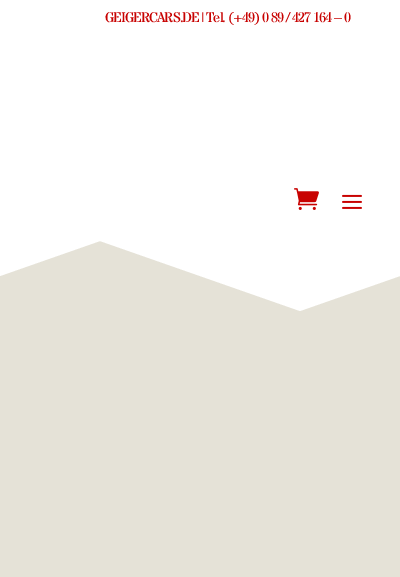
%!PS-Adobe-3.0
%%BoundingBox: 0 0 400 577
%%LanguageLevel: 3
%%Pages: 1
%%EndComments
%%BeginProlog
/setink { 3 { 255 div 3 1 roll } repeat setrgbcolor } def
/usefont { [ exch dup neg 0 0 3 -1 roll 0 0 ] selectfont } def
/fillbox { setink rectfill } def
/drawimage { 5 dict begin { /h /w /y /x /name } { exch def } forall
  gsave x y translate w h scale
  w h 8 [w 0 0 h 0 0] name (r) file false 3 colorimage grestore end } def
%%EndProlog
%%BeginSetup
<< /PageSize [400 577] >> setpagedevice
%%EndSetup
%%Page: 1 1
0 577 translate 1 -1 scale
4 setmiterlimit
0 0 400 577 255 255 255 fillbox
/StardosStencil-Regular 14 usefont
200 2 1 setink
105 22 moveto -1 0 (GEIGERCARS.DE) ashow
201 22 moveto -1 0 (| Tel.) ashow
228 22 moveto -1 0 (\(+49\) 0 89 / 427 164 – 0) ashow
(assets/img1.rgb) 294 188 25 22 drawimage
(assets/img2.rgb) 342 194 20 15 drawimage
0 241 400 336 229 226 215 fillbox
255 255 255 setink
400 276 moveto 300 311 lineto 100 241 lineto 0 276 lineto 0 226 lineto 400 226 lineto closepath fill
showpage
%%EOF
